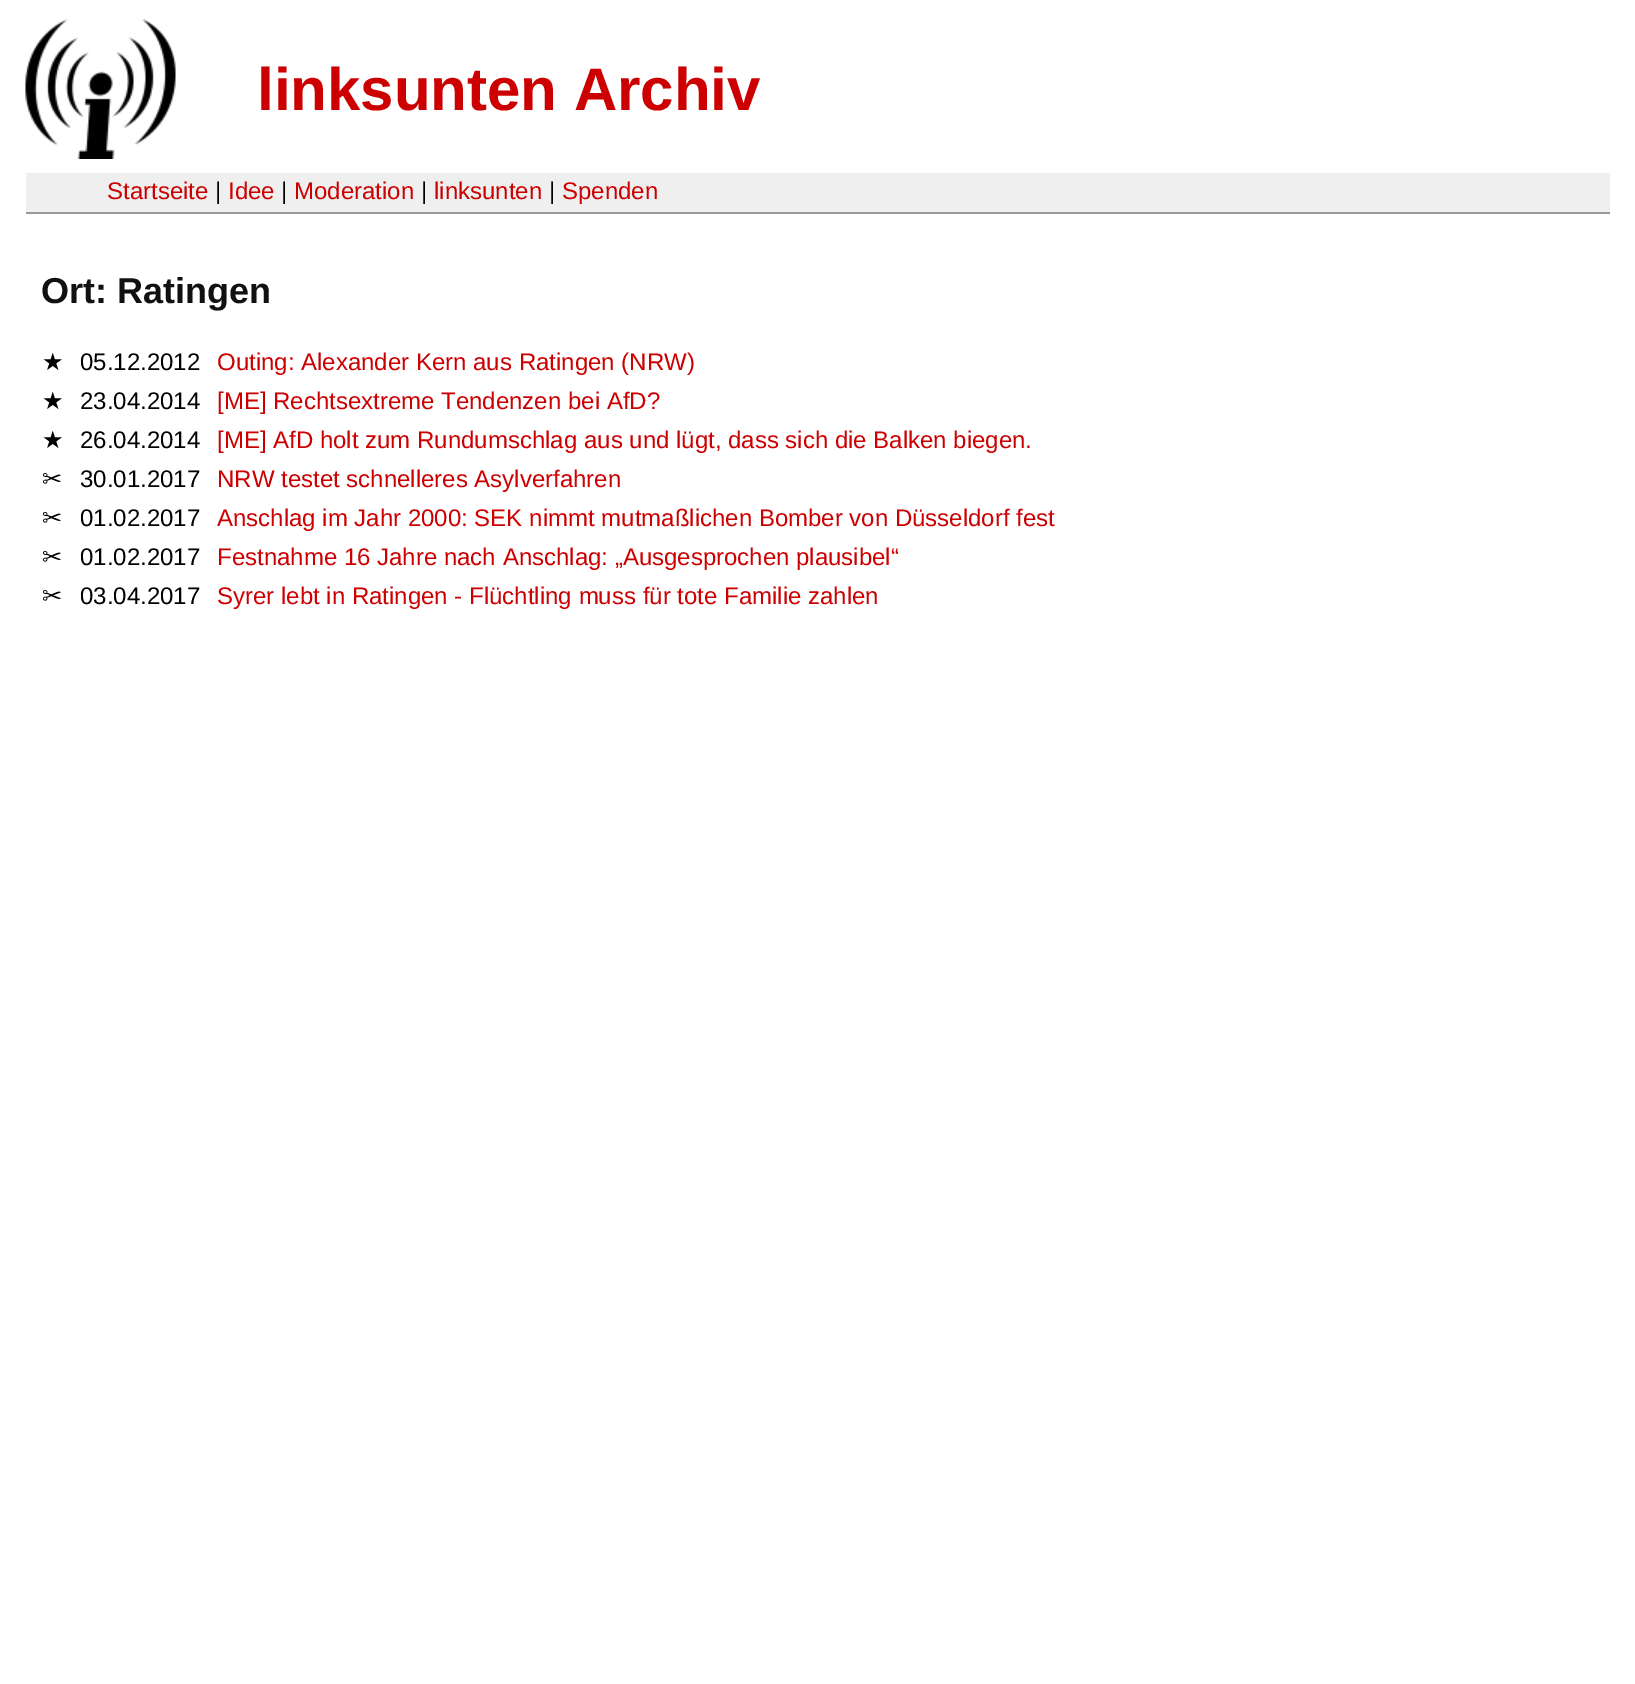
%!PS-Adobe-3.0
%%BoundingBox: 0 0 1635 1684
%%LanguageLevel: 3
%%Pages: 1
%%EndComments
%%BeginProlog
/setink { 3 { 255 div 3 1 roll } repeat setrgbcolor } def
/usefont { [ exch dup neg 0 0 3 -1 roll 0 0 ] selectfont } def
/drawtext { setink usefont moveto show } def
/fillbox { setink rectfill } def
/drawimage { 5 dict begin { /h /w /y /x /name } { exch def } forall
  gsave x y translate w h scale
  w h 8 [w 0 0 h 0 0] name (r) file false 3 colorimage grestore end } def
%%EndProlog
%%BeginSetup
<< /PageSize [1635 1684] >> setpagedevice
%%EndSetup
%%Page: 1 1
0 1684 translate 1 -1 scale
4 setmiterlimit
0 0 1635 1684 255 255 255 fillbox
(assets/img1.rgb) 25 19 151 140 drawimage
(linksunten Archiv) 257 110 /LiberationSans-Bold 60 204 0 0 drawtext
26 173 1584 39 239 239 239 fillbox
26 212 1584 2 153 153 153 fillbox
(Startseite) 107 199 /LiberationSans-Regular 24 204 0 0 drawtext
(|) 215 199 /LiberationSans-Regular 24 0 0 0 drawtext
(Idee) 228 199 /LiberationSans-Regular 24 204 0 0 drawtext
(|) 281 199 /LiberationSans-Regular 24 0 0 0 drawtext
(Moderation) 294 199 /LiberationSans-Regular 24 204 0 0 drawtext
(|) 421 199 /LiberationSans-Regular 24 0 0 0 drawtext
(linksunten) 434 199 /LiberationSans-Regular 24 204 0 0 drawtext
(|) 549 199 /LiberationSans-Regular 24 0 0 0 drawtext
(Spenden) 562 199 /LiberationSans-Regular 24 204 0 0 drawtext
(Ort: Ratingen) 41 303 /LiberationSans-Bold 36 17 17 17 drawtext
(★) 42 370 /DejaVuSans-Regular 24 0 0 0 drawtext
(05.12.2012) 80 370 /LiberationSans-Regular 24 0 0 0 drawtext
(Outing: Alexander Kern aus Ratingen \(NRW\)) 217 370 /LiberationSans-Regular 24 204 0 0 drawtext
(★) 42 409 /DejaVuSans-Regular 24 0 0 0 drawtext
(23.04.2014) 80 409 /LiberationSans-Regular 24 0 0 0 drawtext
([ME] Rechtsextreme Tendenzen bei AfD?) 217 409 /LiberationSans-Regular 24 204 0 0 drawtext
(★) 42 448 /DejaVuSans-Regular 24 0 0 0 drawtext
(26.04.2014) 80 448 /LiberationSans-Regular 24 0 0 0 drawtext
([ME] AfD holt zum Rundumschlag aus und lügt, dass sich die Balken biegen.) 217 448 /LiberationSans-Regular 24 204 0 0 drawtext
(✂) 42 487 /DejaVuSans-Regular 24 0 0 0 drawtext
(30.01.2017) 80 487 /LiberationSans-Regular 24 0 0 0 drawtext
(NRW testet schnelleres Asylverfahren) 217 487 /LiberationSans-Regular 24 204 0 0 drawtext
(✂) 42 526 /DejaVuSans-Regular 24 0 0 0 drawtext
(01.02.2017) 80 526 /LiberationSans-Regular 24 0 0 0 drawtext
(Anschlag im Jahr 2000: SEK nimmt mutmaßlichen Bomber von Düsseldorf fest) 217 526 /LiberationSans-Regular 24 204 0 0 drawtext
(✂) 42 565 /DejaVuSans-Regular 24 0 0 0 drawtext
(01.02.2017) 80 565 /LiberationSans-Regular 24 0 0 0 drawtext
(Festnahme 16 Jahre nach Anschlag: „Ausgesprochen plausibel“) 217 565 /LiberationSans-Regular 24 204 0 0 drawtext
(✂) 42 604 /DejaVuSans-Regular 24 0 0 0 drawtext
(03.04.2017) 80 604 /LiberationSans-Regular 24 0 0 0 drawtext
(Syrer lebt in Ratingen - Flüchtling muss für tote Familie zahlen) 217 604 /LiberationSans-Regular 24 204 0 0 drawtext
showpage
%%EOF
